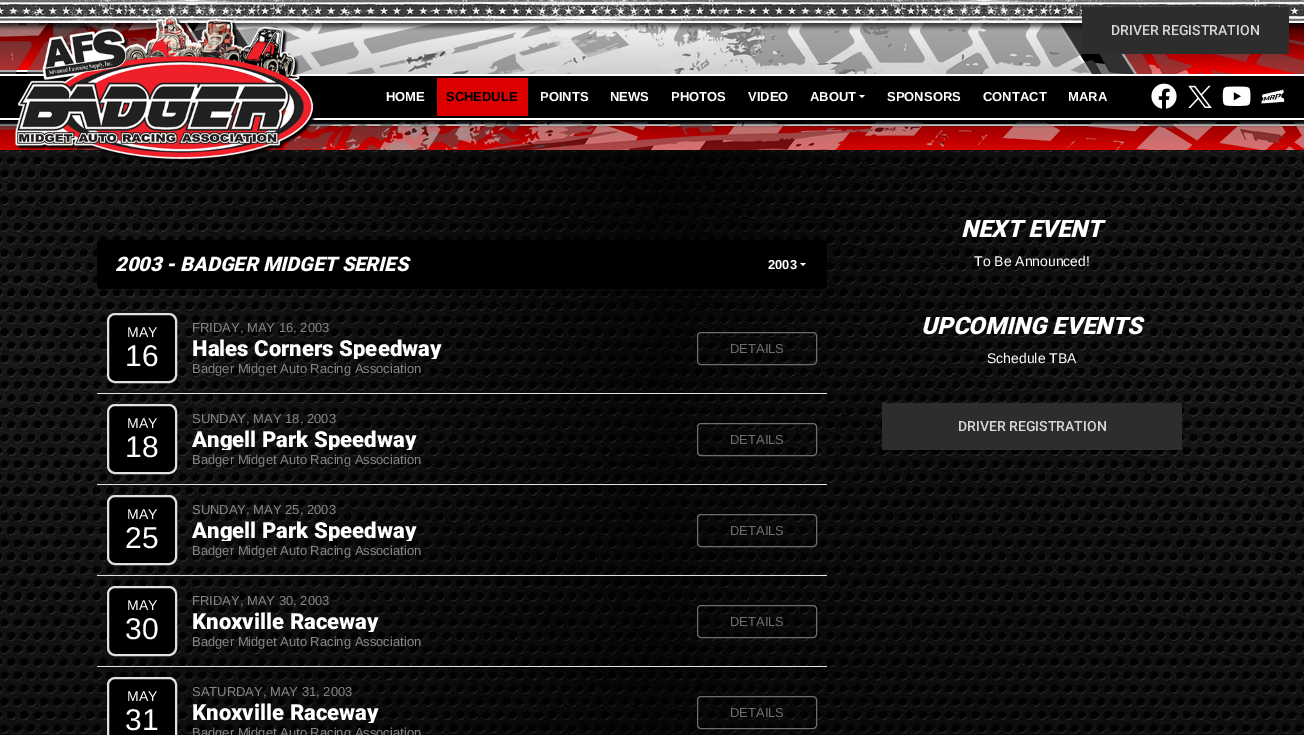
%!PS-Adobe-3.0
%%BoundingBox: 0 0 1304 735
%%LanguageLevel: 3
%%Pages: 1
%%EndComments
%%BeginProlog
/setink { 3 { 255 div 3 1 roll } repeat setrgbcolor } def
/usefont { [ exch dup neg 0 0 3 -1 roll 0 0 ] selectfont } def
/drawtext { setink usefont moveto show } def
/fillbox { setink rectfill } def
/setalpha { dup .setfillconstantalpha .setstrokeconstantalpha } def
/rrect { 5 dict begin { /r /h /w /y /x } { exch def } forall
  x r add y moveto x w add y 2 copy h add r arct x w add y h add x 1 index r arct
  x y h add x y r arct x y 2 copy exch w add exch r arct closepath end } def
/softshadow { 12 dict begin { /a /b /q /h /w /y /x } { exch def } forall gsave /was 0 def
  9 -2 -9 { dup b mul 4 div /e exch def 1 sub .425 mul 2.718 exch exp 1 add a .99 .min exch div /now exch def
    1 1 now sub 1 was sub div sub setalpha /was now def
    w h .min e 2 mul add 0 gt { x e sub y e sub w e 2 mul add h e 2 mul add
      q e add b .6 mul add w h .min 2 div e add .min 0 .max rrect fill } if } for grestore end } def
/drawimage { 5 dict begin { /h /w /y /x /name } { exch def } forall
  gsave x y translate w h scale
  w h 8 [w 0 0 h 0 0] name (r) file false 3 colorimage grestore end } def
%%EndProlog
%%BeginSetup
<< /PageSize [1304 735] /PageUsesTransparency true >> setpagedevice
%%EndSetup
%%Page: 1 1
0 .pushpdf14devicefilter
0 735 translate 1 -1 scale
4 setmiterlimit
0 0 1304 735 255 255 255 fillbox
(assets/img1.rgb) 0 150 1304 585 drawimage
(assets/img2.rgb) 0 0 1304 150 drawimage
(assets/img3.rgb) 15 16 301 147 drawimage
1082 7 207 47 45 45 45 fillbox
(DRIVER REGISTRATION) 1111 35 /Roboto-Medium 14 215 215 215 drawtext
(HOME) 386 101 /LiberationSans-Bold 13 255 255 255 drawtext
437 78 91 38 221 0 0 fillbox
(SCHEDULE) 446 101 /LiberationSans-Bold 13 0 0 0 drawtext
(POINTS) 540 101 /LiberationSans-Bold 13 255 255 255 drawtext
(NEWS) 610 101 /LiberationSans-Bold 13 255 255 255 drawtext
(PHOTOS) 671 101 /LiberationSans-Bold 13 255 255 255 drawtext
(VIDEO) 748 101 /LiberationSans-Bold 13 255 255 255 drawtext
(ABOUT) 810 101 /LiberationSans-Bold 13 255 255 255 drawtext
859 95 moveto 865 95 lineto 862 98 lineto closepath fill
(SPONSORS) 887 101 /LiberationSans-Bold 13 255 255 255 drawtext
(CONTACT) 983 101 /LiberationSans-Bold 13 255 255 255 drawtext
(MARA) 1068 101 /LiberationSans-Bold 13 255 255 255 drawtext
(assets/img4.rgb) 1151 83 26 26 drawimage
(assets/img5.rgb) 1188 85 24 23 drawimage
(assets/img6.rgb) 1222 86 29 20 drawimage
(assets/img7.rgb) 1261 89 24 15 drawimage
31 31 33 setink
97 241 730 49 4 1.5 0.35 softshadow
0 0 0 setink
97 240 730 49 4 rrect fill
(2003 - BADGER MIDGET SERIES) 115 271 /Roboto-BlackItalic 20 255 255 255 drawtext
(2003) 768 269 /LiberationSans-Bold 13 255 255 255 drawtext
800 263 moveto 806 263 lineto 803 266 lineto closepath fill
97 393 730 1 225 225 225 fillbox
0 0 0 setink
108 314 68 68 7 rrect gsave fill grestore
225 225 225 setink
2 setlinewidth
stroke
(MAY) 127 337 /LiberationSans-Regular 14 255 255 255 drawtext
(16) 125 366 /LiberationSans-Regular 30 255 255 255 drawtext
(FRIDAY, MAY 16, 2003) 192 332 /LiberationSans-Regular 13 134 134 134 drawtext
gsave
192 337 495 22 rectclip
(Hales Corners Speedway) 192 356 /Roboto-Black 22.1 255 255 255 drawtext
grestore
(Badger Midget Auto Racing Association) 192 373 /LiberationSans-Regular 13 134 134 134 drawtext
110 110 110 setink
1 setlinewidth
697.5 332.5 119 32 3.5 rrect stroke
(DETAILS) 730 353 /LiberationSans-Regular 13 110 110 110 drawtext
97 484 730 1 225 225 225 fillbox
0 0 0 setink
108 405 68 68 7 rrect gsave fill grestore
225 225 225 setink
2 setlinewidth
stroke
(MAY) 127 428 /LiberationSans-Regular 14 255 255 255 drawtext
(18) 125 457 /LiberationSans-Regular 30 255 255 255 drawtext
(SUNDAY, MAY 18, 2003) 192 423 /LiberationSans-Regular 13 134 134 134 drawtext
gsave
192 428 495 22 rectclip
(Angell Park Speedway) 192 447 /Roboto-Black 22.1 255 255 255 drawtext
grestore
(Badger Midget Auto Racing Association) 192 464 /LiberationSans-Regular 13 134 134 134 drawtext
110 110 110 setink
1 setlinewidth
697.5 423.5 119 32 3.5 rrect stroke
(DETAILS) 730 444 /LiberationSans-Regular 13 110 110 110 drawtext
97 575 730 1 225 225 225 fillbox
0 0 0 setink
108 496 68 68 7 rrect gsave fill grestore
225 225 225 setink
2 setlinewidth
stroke
(MAY) 127 519 /LiberationSans-Regular 14 255 255 255 drawtext
(25) 125 548 /LiberationSans-Regular 30 255 255 255 drawtext
(SUNDAY, MAY 25, 2003) 192 514 /LiberationSans-Regular 13 134 134 134 drawtext
gsave
192 519 495 22 rectclip
(Angell Park Speedway) 192 538 /Roboto-Black 22.1 255 255 255 drawtext
grestore
(Badger Midget Auto Racing Association) 192 555 /LiberationSans-Regular 13 134 134 134 drawtext
110 110 110 setink
1 setlinewidth
697.5 514.5 119 32 3.5 rrect stroke
(DETAILS) 730 535 /LiberationSans-Regular 13 110 110 110 drawtext
97 666 730 1 225 225 225 fillbox
0 0 0 setink
108 587 68 68 7 rrect gsave fill grestore
225 225 225 setink
2 setlinewidth
stroke
(MAY) 127 610 /LiberationSans-Regular 14 255 255 255 drawtext
(30) 125 639 /LiberationSans-Regular 30 255 255 255 drawtext
(FRIDAY, MAY 30, 2003) 192 605 /LiberationSans-Regular 13 134 134 134 drawtext
gsave
192 610 495 22 rectclip
(Knoxville Raceway) 192 629 /Roboto-Black 22.1 255 255 255 drawtext
grestore
(Badger Midget Auto Racing Association) 192 646 /LiberationSans-Regular 13 134 134 134 drawtext
110 110 110 setink
1 setlinewidth
697.5 605.5 119 32 3.5 rrect stroke
(DETAILS) 730 626 /LiberationSans-Regular 13 110 110 110 drawtext
0 0 0 setink
108 678 68 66 7 rrect gsave fill grestore
225 225 225 setink
2 setlinewidth
stroke
(MAY) 127 701 /LiberationSans-Regular 14 255 255 255 drawtext
(31) 125 730 /LiberationSans-Regular 30 255 255 255 drawtext
(SATURDAY, MAY 31, 2003) 192 696 /LiberationSans-Regular 13 134 134 134 drawtext
gsave
192 701 495 22 rectclip
(Knoxville Raceway) 192 720 /Roboto-Black 22.1 255 255 255 drawtext
grestore
(Badger Midget Auto Racing Association) 192 737 /LiberationSans-Regular 13 134 134 134 drawtext
110 110 110 setink
1 setlinewidth
697.5 696.5 119 32 3.5 rrect stroke
(DETAILS) 730 717 /LiberationSans-Regular 13 110 110 110 drawtext
(NEXT EVENT) 961 237 /Roboto-BlackItalic 24 255 255 255 drawtext
(To Be Announced!) 974 266 /LiberationSans-Regular 14 255 255 255 drawtext
(UPCOMING EVENTS) 921 334 /Roboto-BlackItalic 24 255 255 255 drawtext
(Schedule TBA) 987 363 /LiberationSans-Regular 14 255 255 255 drawtext
882 403 300 47 45 45 45 fillbox
(DRIVER REGISTRATION) 958 431 /Roboto-Medium 14 215 215 215 drawtext
.poppdf14devicefilter showpage
%%EOF
